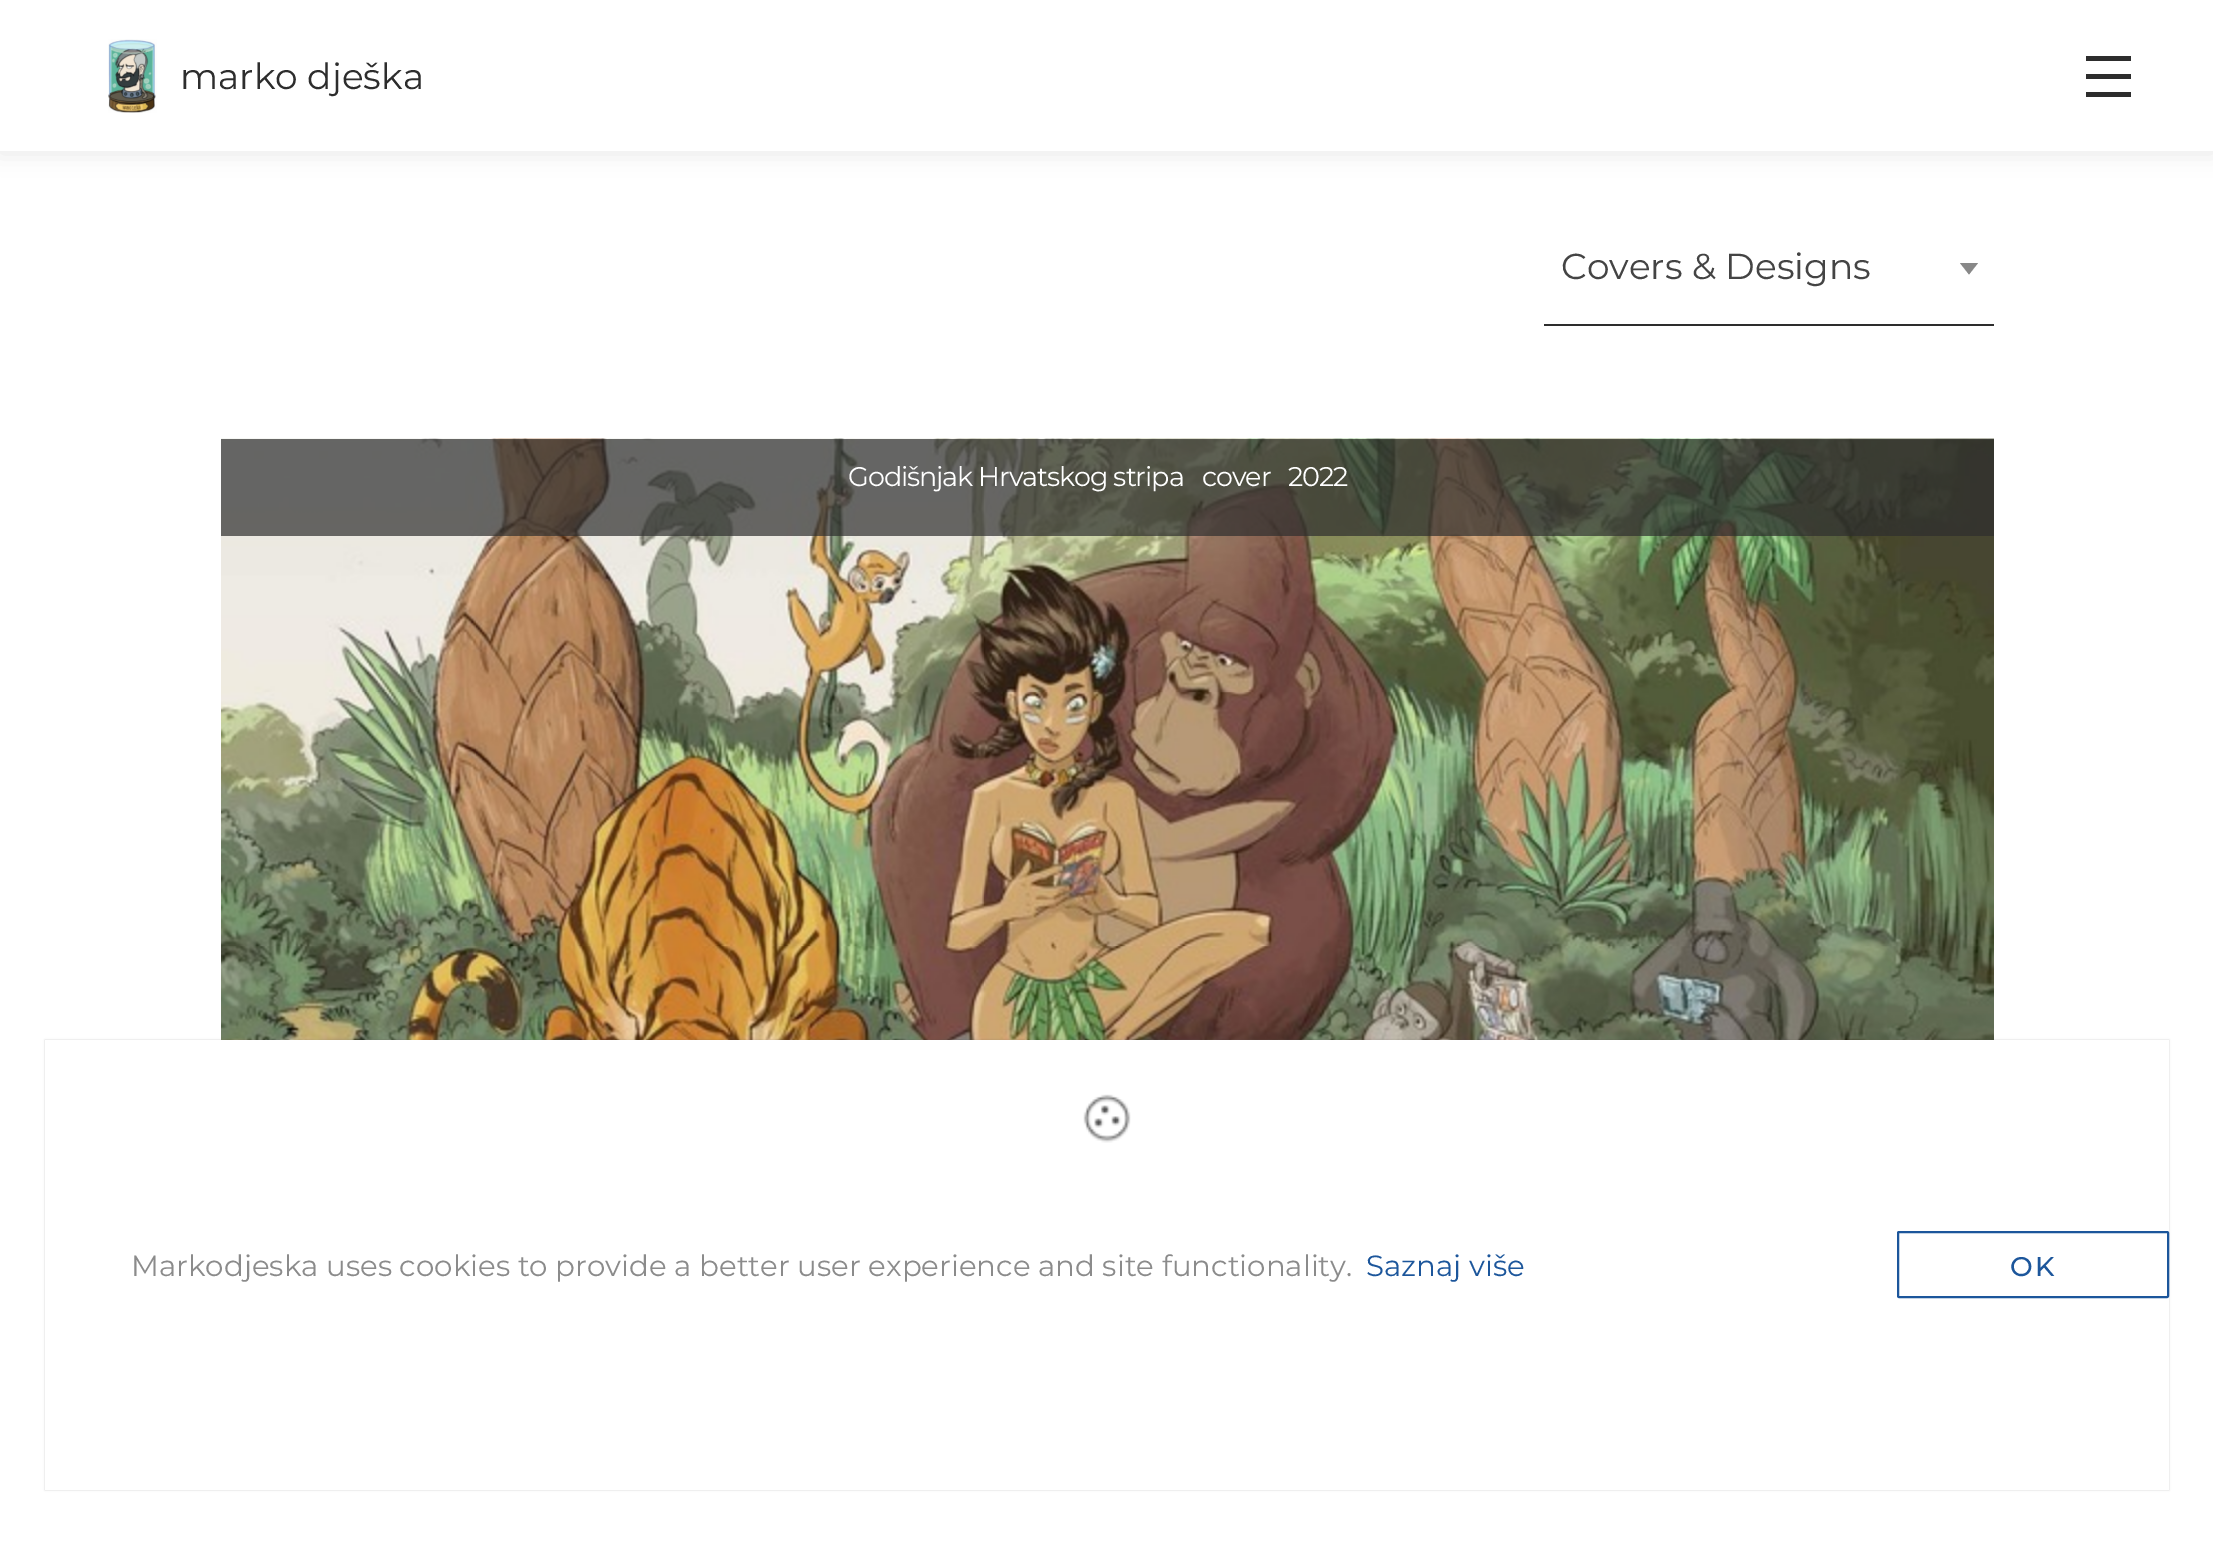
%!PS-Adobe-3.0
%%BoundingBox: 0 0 2213 1542
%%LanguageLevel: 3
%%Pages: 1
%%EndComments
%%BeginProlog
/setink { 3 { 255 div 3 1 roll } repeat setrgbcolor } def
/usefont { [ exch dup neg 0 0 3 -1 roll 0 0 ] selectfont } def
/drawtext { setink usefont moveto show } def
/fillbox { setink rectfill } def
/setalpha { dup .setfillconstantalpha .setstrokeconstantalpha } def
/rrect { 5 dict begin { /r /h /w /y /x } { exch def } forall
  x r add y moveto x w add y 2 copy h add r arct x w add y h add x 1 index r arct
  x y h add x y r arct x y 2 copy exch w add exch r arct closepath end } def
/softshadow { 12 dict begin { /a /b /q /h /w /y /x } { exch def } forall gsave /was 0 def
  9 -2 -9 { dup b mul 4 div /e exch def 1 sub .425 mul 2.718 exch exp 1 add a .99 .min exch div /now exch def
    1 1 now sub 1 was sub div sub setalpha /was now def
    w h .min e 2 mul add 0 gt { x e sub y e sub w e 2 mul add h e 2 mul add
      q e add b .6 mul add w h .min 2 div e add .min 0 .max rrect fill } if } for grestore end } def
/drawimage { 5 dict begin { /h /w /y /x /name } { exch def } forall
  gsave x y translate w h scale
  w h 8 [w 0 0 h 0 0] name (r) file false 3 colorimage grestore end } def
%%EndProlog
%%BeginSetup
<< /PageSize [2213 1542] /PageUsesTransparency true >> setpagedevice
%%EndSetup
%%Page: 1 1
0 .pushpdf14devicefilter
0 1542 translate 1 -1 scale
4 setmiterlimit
0 0 2213 1542 255 255 255 fillbox
22 22 22 setink
0 2 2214 151 0 11 0.1 softshadow
0 0 2213 151 255 255 255 fillbox
(assets/img1.rgb) 108 39 49 74 drawimage
(marko dješka) 180 89 /Montserrat-Regular 36 45 45 45 drawtext
2086 74 45 5 45 45 45 fillbox
2086 56 45 5 45 45 45 fillbox
2086 92 45 5 45 45 45 fillbox
1544 324 450 2 45 45 45 fillbox
(Covers & Designs) 1561 279 /Montserrat-Regular 36 68 68 68 drawtext
136 136 136 setink
1960 263 moveto 1978 263 lineto 1969 274.5 lineto closepath fill
(assets/img2.rgb) 221 438 1773 602 drawimage
0.7 setalpha
221 439 1773 97 45 45 45 fillbox
/Montserrat-Regular 27 usefont
1 setalpha
255 255 255 setink
848 486 moveto -1.1 0 (Godišnjak Hrvatskog stripa) ashow
1202 486 moveto -1.1 0 (cover) ashow
1288 486 moveto -1.1 0 (2022) ashow
85 85 85 setink
45 1040 2124 450 0 1 0.3 softshadow
45 1040 2124 450 255 255 255 fillbox
(assets/img3.rgb) 1083 1094 48 49 drawimage
(Markodjeska uses cookies to provide a better user experience and site functionality.) 131 1276 /Montserrat-Regular 29.25 139 139 139 drawtext
(Saznaj više) 1366 1276 /Montserrat-Regular 29.25 28 86 155 drawtext
2 setlinewidth
1898 1232 270 65 1 rrect stroke
/Montserrat-Medium 27 usefont
2010 1276 moveto 2 0 (OK) ashow
.poppdf14devicefilter showpage
%%EOF
